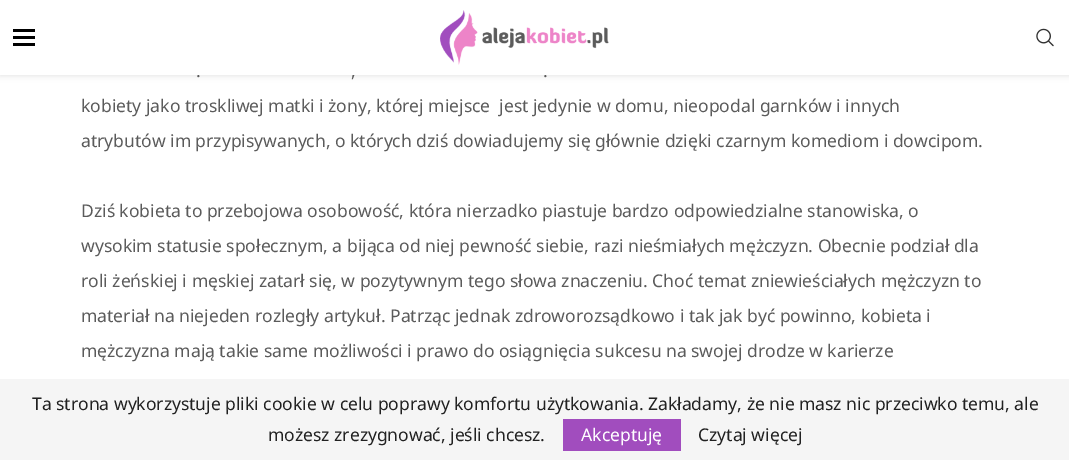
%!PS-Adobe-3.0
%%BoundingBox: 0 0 1069 460
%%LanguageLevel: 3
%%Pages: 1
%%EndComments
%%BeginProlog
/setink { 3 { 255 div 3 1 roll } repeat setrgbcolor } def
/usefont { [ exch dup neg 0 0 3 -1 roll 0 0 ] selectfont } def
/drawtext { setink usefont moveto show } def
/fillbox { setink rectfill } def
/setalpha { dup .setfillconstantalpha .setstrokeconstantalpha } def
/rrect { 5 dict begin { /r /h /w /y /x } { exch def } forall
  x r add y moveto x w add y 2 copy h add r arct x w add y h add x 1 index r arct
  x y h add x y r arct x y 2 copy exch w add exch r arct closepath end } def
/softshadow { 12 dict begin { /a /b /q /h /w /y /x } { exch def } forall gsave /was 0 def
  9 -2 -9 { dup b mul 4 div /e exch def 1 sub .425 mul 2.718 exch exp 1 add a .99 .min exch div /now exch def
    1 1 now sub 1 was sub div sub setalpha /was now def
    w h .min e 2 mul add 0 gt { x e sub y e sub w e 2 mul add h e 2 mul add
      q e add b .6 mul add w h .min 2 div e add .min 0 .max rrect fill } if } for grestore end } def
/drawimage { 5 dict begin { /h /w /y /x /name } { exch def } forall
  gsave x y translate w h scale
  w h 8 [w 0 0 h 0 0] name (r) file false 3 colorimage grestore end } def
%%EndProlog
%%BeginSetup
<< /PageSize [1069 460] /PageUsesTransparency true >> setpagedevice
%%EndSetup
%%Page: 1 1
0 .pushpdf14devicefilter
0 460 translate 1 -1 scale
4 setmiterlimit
0 0 1069 460 255 255 255 fillbox
190 190 190 setink
0 1 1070 75 0 3 0.46 softshadow
(.) 196 77 /NotoSans-Regular 17.5 91 91 91 drawtext
(.) 543 77 /NotoSans-Regular 17.5 91 91 91 drawtext
0 0 1069 75 255 255 255 fillbox
13 29 22 3 0 0 0 fillbox
13 36 22 3 0 0 0 fillbox
13 43 22 3 0 0 0 fillbox
(assets/img1.rgb) 440 10 169 55 drawimage
(assets/img2.rgb) 1036 28 18 19 drawimage
(,) 351 77 /NotoSans-Regular 17.5 91 91 91 drawtext
(kobiety jako troskliwej matki i żony, której miejsce  jest jedynie w domu, nieopodal garnków i innych) 81 112 /NotoSans-Regular 17.5 91 91 91 drawtext
(atrybutów im przypisywanych, o których dziś dowiadujemy się głównie dzięki czarnym komediom i dowcipom.) 81 147 /NotoSans-Regular 17.5 91 91 91 drawtext
(Dziś kobieta to przebojowa osobowość, która nierzadko piastuje bardzo odpowiedzialne stanowiska, o) 81 217 /NotoSans-Regular 17.5 91 91 91 drawtext
(wysokim statusie społecznym, a bijąca od niej pewność siebie, razi nieśmiałych mężczyzn. Obecnie podział dla) 81 252 /NotoSans-Regular 17.5 91 91 91 drawtext
(roli żeńskiej i męskiej zatarł się, w pozytywnym tego słowa znaczeniu. Choć temat zniewieściałych mężczyzn to) 81 287 /NotoSans-Regular 17.5 91 91 91 drawtext
(materiał na niejeden rozległy artykuł. Patrząc jednak zdroworozsądkowo i tak jak być powinno, kobieta i) 81 322 /NotoSans-Regular 17.5 91 91 91 drawtext
(mężczyzna mają takie same możliwości i prawo do osiągnięcia sukcesu na swojej drodze w karierze) 81 357 /NotoSans-Regular 17.5 91 91 91 drawtext
0 379 1069 81 245 245 245 fillbox
(Ta strona wykorzystuje pliki cookie w celu poprawy komfortu użytkowania. Zakładamy, że nie masz nic przeciwko temu, ale) 32 410 /NotoSans-Regular 17.5 33 33 33 drawtext
(możesz zrezygnować, jeśli chcesz.) 268 441 /NotoSans-Regular 17.5 33 33 33 drawtext
563 419 118 32 161 77 190 fillbox
(Akceptuję) 581 441 /NotoSans-Regular 17.5 255 255 255 drawtext
(Czytaj więcej) 698 441 /NotoSans-Regular 17.5 33 33 33 drawtext
.poppdf14devicefilter showpage
%%EOF
